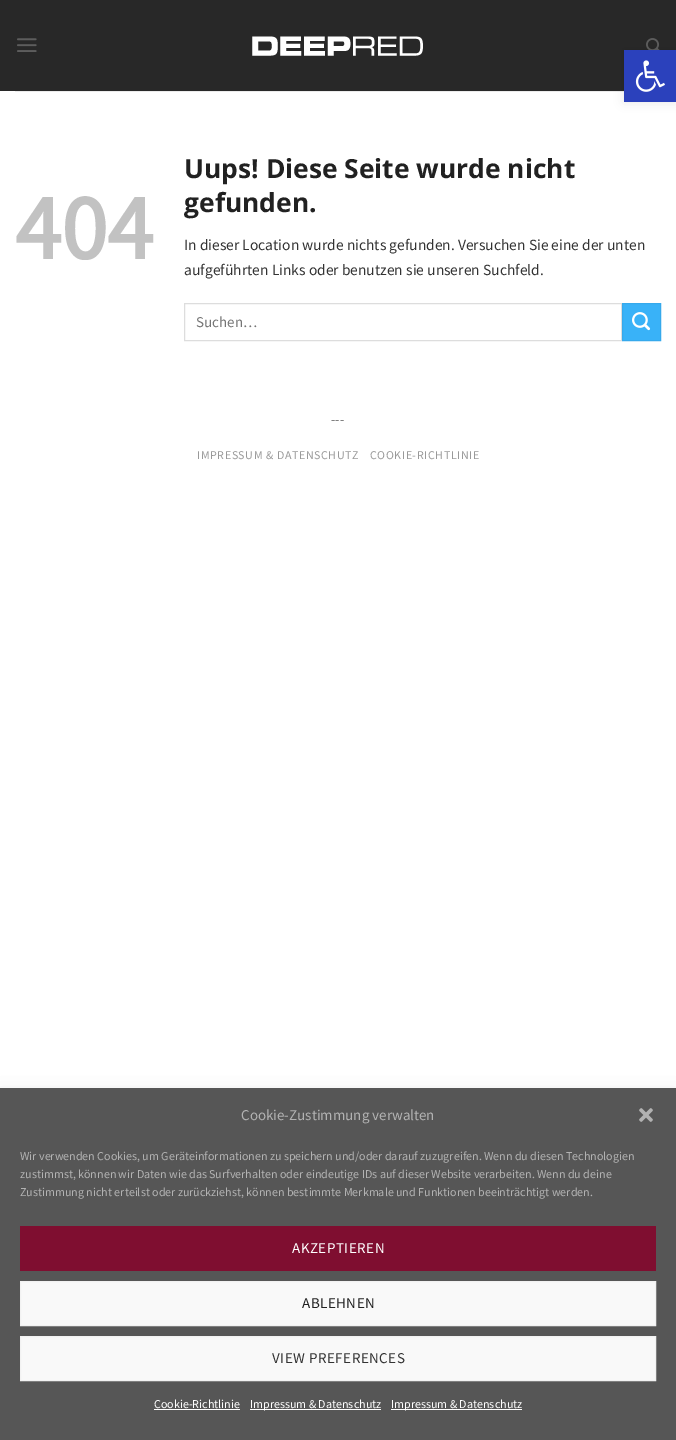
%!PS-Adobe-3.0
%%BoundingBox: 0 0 676 1440
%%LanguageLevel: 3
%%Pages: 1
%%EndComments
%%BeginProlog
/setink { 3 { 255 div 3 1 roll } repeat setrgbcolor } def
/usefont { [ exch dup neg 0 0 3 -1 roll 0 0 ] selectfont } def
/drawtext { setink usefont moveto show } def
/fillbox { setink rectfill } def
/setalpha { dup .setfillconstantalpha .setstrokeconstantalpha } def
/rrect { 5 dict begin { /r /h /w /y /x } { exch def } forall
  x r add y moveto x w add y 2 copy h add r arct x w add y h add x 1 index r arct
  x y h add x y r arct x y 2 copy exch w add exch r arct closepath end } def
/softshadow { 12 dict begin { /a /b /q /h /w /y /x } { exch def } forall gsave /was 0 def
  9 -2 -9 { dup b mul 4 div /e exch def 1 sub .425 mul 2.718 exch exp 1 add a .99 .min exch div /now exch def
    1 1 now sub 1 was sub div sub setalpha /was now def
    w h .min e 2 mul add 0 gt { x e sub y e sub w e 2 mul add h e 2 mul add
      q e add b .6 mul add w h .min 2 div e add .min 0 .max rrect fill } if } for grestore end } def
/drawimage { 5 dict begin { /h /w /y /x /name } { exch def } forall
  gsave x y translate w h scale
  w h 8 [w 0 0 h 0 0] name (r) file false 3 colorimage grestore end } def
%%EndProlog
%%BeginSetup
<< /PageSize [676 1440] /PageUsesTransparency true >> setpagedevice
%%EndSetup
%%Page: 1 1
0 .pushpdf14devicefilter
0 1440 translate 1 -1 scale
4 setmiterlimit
0 0 676 1440 255 255 255 fillbox
0 0 676 91 40 40 40 fillbox
(assets/img4.rgb) 646 38 14 12 drawimage
15 91 609 1 235 235 235 fillbox
0 0 0 setink
624 50 52 52 0 5 0.1 softshadow
624 50 52 52 43 65 188 fillbox
(assets/img1.rgb) 635 60 30 32 drawimage
(assets/img2.rgb) 17 38 20 14 drawimage
(assets/img3.rgb) 252 36 171 20 drawimage
(404) 15 259 /SourceSansPro-Bold 93 194 194 194 drawtext
(Uups! Diese Seite wurde nicht) 184 178 /OpenSans-Bold 26.4 33 33 33 drawtext
(gefunden.) 184 212 /OpenSans-Bold 26.4 33 33 33 drawtext
(In dieser Location wurde nichts gefunden. Versuchen Sie eine der unten) 184 250 /SourceSansPro-Regular 15.5 51 51 51 drawtext
(aufgeführten Links oder benutzen sie unseren Suchfeld.) 184 275 /SourceSansPro-Regular 15.5 51 51 51 drawtext
221 221 221 setink
184.5 303.5 437 37 rectstroke
(Suchen…) 196 327 /SourceSansPro-Regular 15 117 117 117 drawtext
57 178 248 setink
622.5 303.5 moveto 660.5 303.5 lineto 660.5 340.5 lineto 622.5 340.5 lineto closepath gsave fill grestore
54 169 236 setink
stroke
(assets/img5.rgb) 632 312 19 19 drawimage
(---) 331 424 /SourceSansPro-Regular 14 128 128 128 drawtext
/SourceSansPro-Regular 11.9 usefont
153 153 153 setink
197 459 moveto 0.6 0 (IMPRESSUM & DATENSCHUTZ) ashow
370 459 moveto 0.6 0 (COOKIE-RICHTLINIE) ashow
0 0 0 setink
0 1098 676 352 0 10 0.19 softshadow
0 1088 676 352 86 86 86 fillbox
(Cookie-Zustimmung verwalten) 241 1120 /SourceSansPro-Regular 15 178 178 178 drawtext
(assets/img6.rgb) 639 1108 14 14 drawimage
(Wir verwenden Cookies, um Geräteinformationen zu speichern und/oder darauf zuzugreifen. Wenn du diesen Technologien) 20 1160 /SourceSansPro-Regular 12 178 178 178 drawtext
(zustimmst, können wir Daten wie das Surfverhalten oder eindeutige IDs auf dieser Website verarbeiten. Wenn du deine) 20 1178 /SourceSansPro-Regular 12 178 178 178 drawtext
(Zustimmung nicht erteilst oder zurückziehst, können bestimmte Merkmale und Funktionen beeinträchtigt werden.) 20 1196 /SourceSansPro-Regular 12 178 178 178 drawtext
20 1226 636 45 127 14 48 fillbox
/SourceSansPro-Regular 15 usefont
255 255 255 setink
292 1253 moveto 0.5 0 (AKZEPTIEREN) ashow
249 249 249 setink
20.5 1281.5 moveto 655.5 1281.5 lineto 655.5 1325.5 lineto 20.5 1325.5 lineto closepath gsave fill grestore
242 242 242 setink
stroke
33 33 33 setink
302 1308 moveto 0.5 0 (ABLEHNEN) ashow
249 249 249 setink
20.5 1336.5 moveto 655.5 1336.5 lineto 655.5 1380.5 lineto 20.5 1380.5 lineto closepath gsave fill grestore
242 242 242 setink
stroke
51 51 51 setink
272 1363 moveto 0.5 0 (VIEW PREFERENCES) ashow
(Cookie-Richtlinie) 154 1408 /SourceSansPro-Regular 12 255 255 255 drawtext
154 1409 86 1 255 255 255 fillbox
250 1409 131 1 255 255 255 fillbox
(Impressum & Datenschutz) 250 1408 /SourceSansPro-Regular 12 255 255 255 drawtext
391 1409 131 1 255 255 255 fillbox
(Impressum & Datenschutz) 391 1408 /SourceSansPro-Regular 12 255 255 255 drawtext
.poppdf14devicefilter showpage
%%EOF
